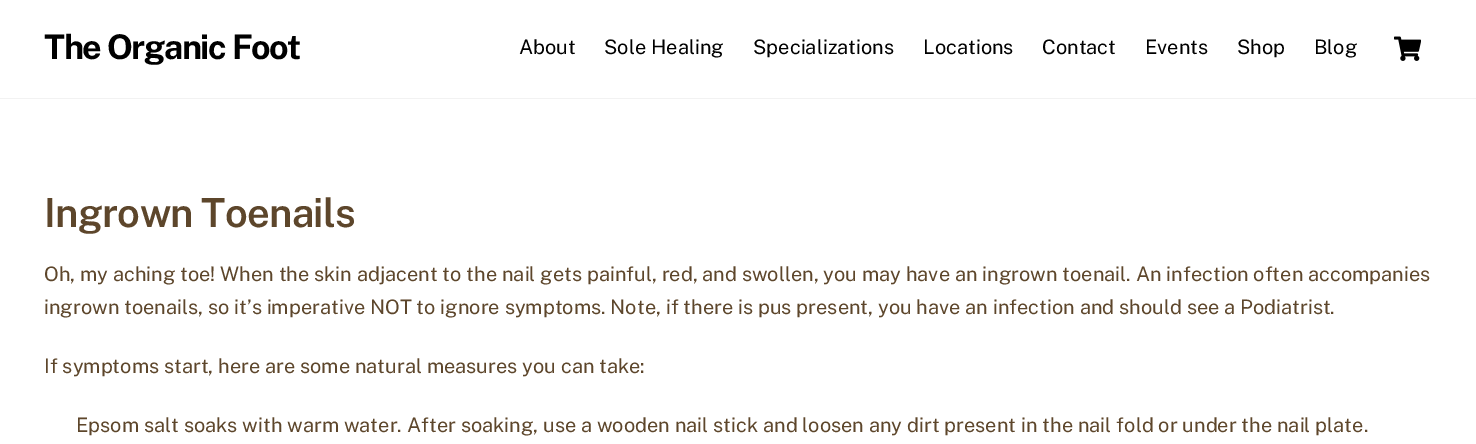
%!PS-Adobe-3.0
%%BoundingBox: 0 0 1476 444
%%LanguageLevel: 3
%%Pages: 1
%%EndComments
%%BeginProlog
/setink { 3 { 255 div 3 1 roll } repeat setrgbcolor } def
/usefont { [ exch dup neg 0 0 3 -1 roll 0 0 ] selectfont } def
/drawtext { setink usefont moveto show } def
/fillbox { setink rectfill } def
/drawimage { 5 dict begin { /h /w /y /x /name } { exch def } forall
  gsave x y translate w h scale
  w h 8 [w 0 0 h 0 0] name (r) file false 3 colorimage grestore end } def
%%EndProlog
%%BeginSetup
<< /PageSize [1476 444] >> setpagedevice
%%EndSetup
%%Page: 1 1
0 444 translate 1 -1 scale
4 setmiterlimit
0 0 1476 444 255 255 255 fillbox
0 98 1476 1 242 242 242 fillbox
/PublicSans-Bold 34 usefont
0 0 0 setink
44 59 moveto -1.4 0 (The Organic Foot) ashow
(About) 519 54 /PublicSans-Regular 20 0 0 0 drawtext
(Sole Healing) 604 54 /PublicSans-Regular 20 0 0 0 drawtext
(Specializations) 753 54 /PublicSans-Regular 20 0 0 0 drawtext
(Locations) 923 54 /PublicSans-Regular 20 0 0 0 drawtext
(Contact) 1042 54 /PublicSans-Regular 20 0 0 0 drawtext
(Events) 1145 54 /PublicSans-Regular 20 0 0 0 drawtext
(Shop) 1237 54 /PublicSans-Regular 20 0 0 0 drawtext
(Blog) 1314 54 /PublicSans-Regular 20 0 0 0 drawtext
(assets/img1.rgb) 1394 36 27 25 drawimage
/PublicSans-SemiBold 40 usefont
93 70 43 setink
44 227 moveto -0.75 0 (Ingrown Toenails) ashow
(Oh, my aching toe! When the skin adjacent to the nail gets painful, red, and swollen, you may have an ingrown toenail. An infection often accompanies) 44 281 /PublicSans-Regular 20 93 70 43 drawtext
(ingrown toenails, so it’s imperative NOT to ignore symptoms. Note, if there is pus present, you have an infection and should see a Podiatrist.) 44 314 /PublicSans-Regular 20 93 70 43 drawtext
(If symptoms start, here are some natural measures you can take:) 44 373 /PublicSans-Regular 20 93 70 43 drawtext
(Epsom salt soaks with warm water. After soaking, use a wooden nail stick and loosen any dirt present in the nail fold or under the nail plate.) 76 432 /PublicSans-Regular 20 93 70 43 drawtext
showpage
%%EOF
